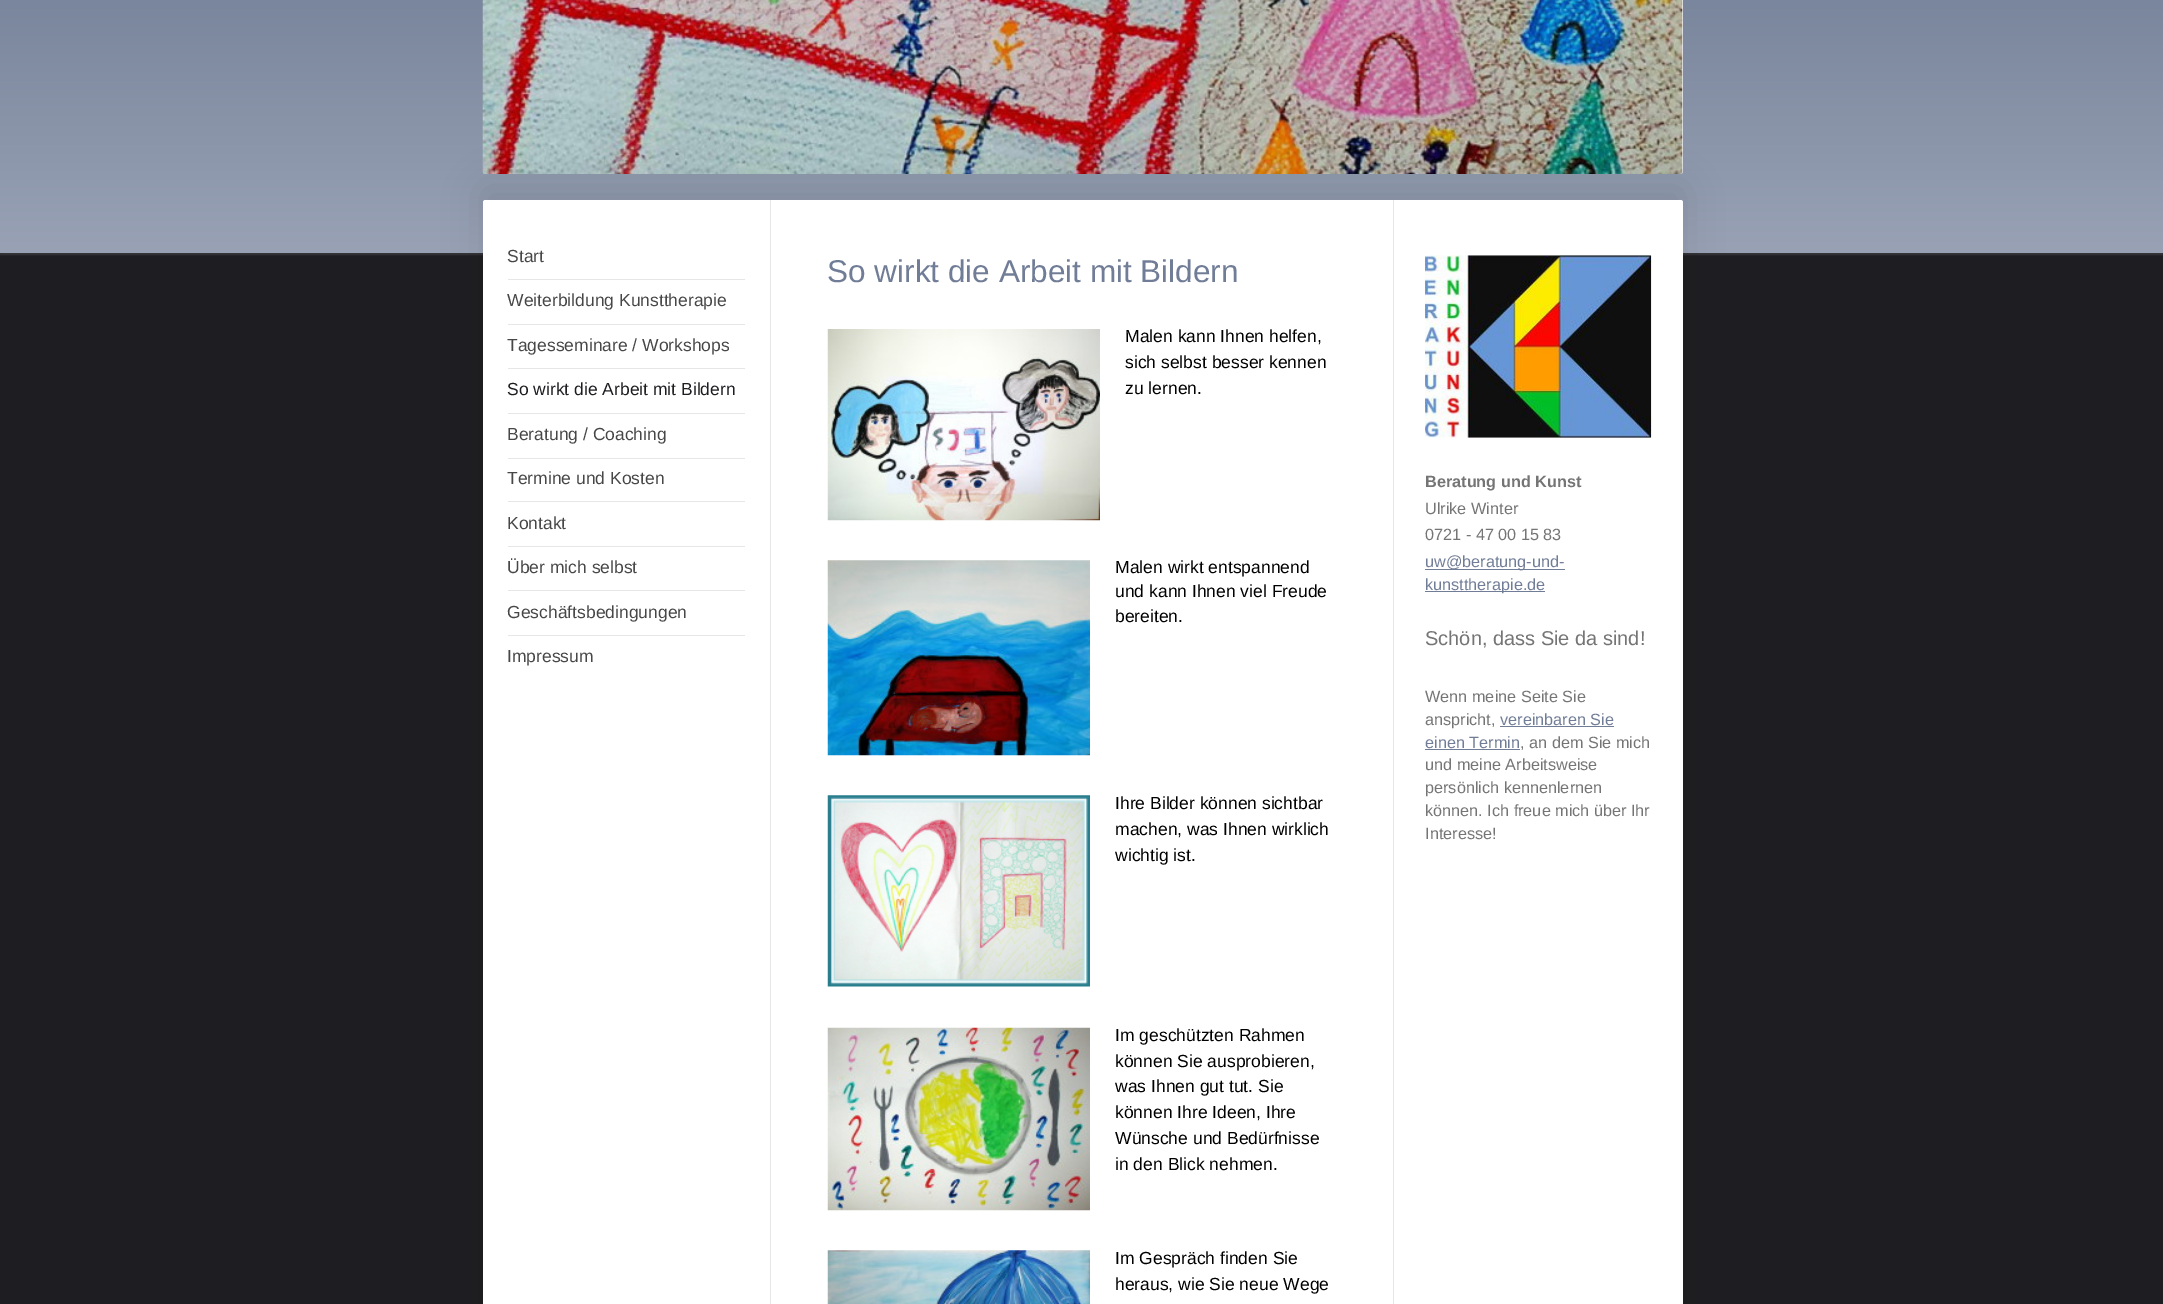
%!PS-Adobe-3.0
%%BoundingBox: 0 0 2163 1304
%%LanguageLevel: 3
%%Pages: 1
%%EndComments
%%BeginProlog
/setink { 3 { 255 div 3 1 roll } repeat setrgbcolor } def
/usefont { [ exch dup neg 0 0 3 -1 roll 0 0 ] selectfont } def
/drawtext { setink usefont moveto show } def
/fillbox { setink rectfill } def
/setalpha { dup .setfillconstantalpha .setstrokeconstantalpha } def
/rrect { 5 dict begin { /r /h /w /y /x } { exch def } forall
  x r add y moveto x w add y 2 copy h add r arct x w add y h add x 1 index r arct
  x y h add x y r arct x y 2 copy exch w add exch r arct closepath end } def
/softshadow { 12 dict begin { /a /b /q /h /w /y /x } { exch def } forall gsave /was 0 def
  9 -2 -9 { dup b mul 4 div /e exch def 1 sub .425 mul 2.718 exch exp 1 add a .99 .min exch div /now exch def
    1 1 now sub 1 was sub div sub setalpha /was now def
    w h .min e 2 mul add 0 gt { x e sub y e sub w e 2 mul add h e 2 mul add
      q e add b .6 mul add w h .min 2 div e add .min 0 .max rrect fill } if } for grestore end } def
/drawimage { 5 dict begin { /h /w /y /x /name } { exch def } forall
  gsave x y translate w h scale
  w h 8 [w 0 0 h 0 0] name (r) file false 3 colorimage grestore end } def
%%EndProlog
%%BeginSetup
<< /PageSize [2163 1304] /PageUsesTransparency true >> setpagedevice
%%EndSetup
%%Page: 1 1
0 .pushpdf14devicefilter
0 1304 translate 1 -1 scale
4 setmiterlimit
0 0 2163 1304 30 30 34 fillbox
255 255 255 setink
0 -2 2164 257 0 0.5 0.1 softshadow
gsave 0 0 moveto 2163 0 lineto 2163 253 lineto 0 253 lineto closepath clip newpath
<< /ShadingType 2 /ColorSpace /DeviceRGB /Coords [0 253 0 -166] /Extend [true true] /Function << /FunctionType 2 /Domain [0 1] /C0 [0.6 0.635 0.71] /C1 [0.396 0.451 0.553] /N 1 >> >> shfill grestore
238 238 238 setink
483 -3 1200 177 2.5 rrect fill
(assets/img1.rgb) 482 0 1201 174 drawimage
0 0 0 setink
483 188 1200 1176 2.5 19 0.1 softshadow
255 255 255 setink
483 200 1200 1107 2.5 rrect fill
508 279 237 1 230 230 230 fillbox
(Start) 507 262 /LiberationSans-Regular 17.5 71 71 71 drawtext
508 324 237 1 230 230 230 fillbox
(Weiterbildung Kunsttherapie) 507 306 /LiberationSans-Regular 17.5 71 71 71 drawtext
508 368 237 1 230 230 230 fillbox
(Tagesseminare / Workshops) 507 351 /LiberationSans-Regular 17.5 71 71 71 drawtext
508 413 237 1 230 230 230 fillbox
(So wirkt die Arbeit mit Bildern) 507 395 /LiberationSans-Regular 17.5 30 30 34 drawtext
508 458 237 1 230 230 230 fillbox
(Beratung / Coaching) 507 440 /LiberationSans-Regular 17.5 71 71 71 drawtext
508 501 237 1 230 230 230 fillbox
(Termine und Kosten) 507 484 /LiberationSans-Regular 17.5 71 71 71 drawtext
508 546 237 1 230 230 230 fillbox
(Kontakt) 507 529 /LiberationSans-Regular 17.5 71 71 71 drawtext
508 590 237 1 230 230 230 fillbox
(Über mich selbst) 507 573 /LiberationSans-Regular 17.5 71 71 71 drawtext
508 635 237 1 230 230 230 fillbox
(Geschäftsbedingungen) 507 618 /LiberationSans-Regular 17.5 71 71 71 drawtext
(Impressum) 507 662 /LiberationSans-Regular 17.5 71 71 71 drawtext
1393 200 1 1104 230 230 230 fillbox
770 200 1 1104 230 230 230 fillbox
(So wirkt die Arbeit mit Bildern) 827 282 /LiberationSans-Regular 31.5 113 125 151 drawtext
(assets/img2.rgb) 827 329 273 192 drawimage
(Malen kann Ihnen helfen,) 1125 342 /LiberationSans-Regular 17.5 0 0 0 drawtext
(sich selbst besser kennen) 1125 368 /LiberationSans-Regular 17.5 0 0 0 drawtext
(zu lernen.) 1125 394 /LiberationSans-Regular 17.5 0 0 0 drawtext
(assets/img3.rgb) 827 560 263 196 drawimage
(Malen wirkt entspannend) 1115 573 /LiberationSans-Regular 17.5 0 0 0 drawtext
(und kann Ihnen viel Freude) 1115 597 /LiberationSans-Regular 17.5 0 0 0 drawtext
(bereiten.) 1115 622 /LiberationSans-Regular 17.5 0 0 0 drawtext
(assets/img4.rgb) 827 795 263 192 drawimage
(Ihre Bilder können sichtbar) 1115 809 /LiberationSans-Regular 17.5 0 0 0 drawtext
(machen, was Ihnen wirklich) 1115 835 /LiberationSans-Regular 17.5 0 0 0 drawtext
(wichtig ist.) 1115 861 /LiberationSans-Regular 17.5 0 0 0 drawtext
(assets/img5.rgb) 827 1027 263 184 drawimage
(Im geschützten Rahmen) 1115 1041 /LiberationSans-Regular 17.5 0 0 0 drawtext
(können Sie ausprobieren,) 1115 1067 /LiberationSans-Regular 17.5 0 0 0 drawtext
(was Ihnen gut tut. Sie) 1115 1092 /LiberationSans-Regular 17.5 0 0 0 drawtext
(können Ihre Ideen, Ihre) 1115 1118 /LiberationSans-Regular 17.5 0 0 0 drawtext
(Wünsche und Bedürfnisse) 1115 1144 /LiberationSans-Regular 17.5 0 0 0 drawtext
(in den Blick nehmen.) 1115 1170 /LiberationSans-Regular 17.5 0 0 0 drawtext
(assets/img6.rgb) 827 1250 263 54 drawimage
(Im Gespräch finden Sie) 1115 1264 /LiberationSans-Regular 17.5 0 0 0 drawtext
(heraus, wie Sie neue Wege) 1115 1290 /LiberationSans-Regular 17.5 0 0 0 drawtext
(assets/img7.rgb) 1425 255 227 183 drawimage
(Beratung und Kunst) 1425 487 /LiberationSans-Bold 16.25 117 117 117 drawtext
(Ulrike Winter) 1425 514 /LiberationSans-Regular 16.25 117 117 117 drawtext
(0721 - 47 00 15 83) 1425 540 /LiberationSans-Regular 16.25 117 117 117 drawtext
1425 569 140 1 113 125 151 fillbox
(uw@beratung-und-) 1425 567 /LiberationSans-Regular 16.25 113 125 151 drawtext
1425 591 120 1 113 125 151 fillbox
(kunsttherapie.de) 1425 590 /LiberationSans-Regular 16.25 113 125 151 drawtext
(Schön, dass Sie da sind!) 1425 645 /LiberationSans-Regular 20 117 117 117 drawtext
(Wenn meine Seite Sie) 1425 702 /LiberationSans-Regular 16.25 117 117 117 drawtext
(anspricht,) 1425 725 /LiberationSans-Regular 16.25 117 117 117 drawtext
(vereinbaren Sie) 1500 725 /LiberationSans-Regular 16.25 113 125 151 drawtext
1500 726 114 1 113 125 151 fillbox
(einen Termin) 1425 748 /LiberationSans-Regular 16.25 113 125 151 drawtext
1425 749 95 1 113 125 151 fillbox
(, an dem Sie mich) 1520 748 /LiberationSans-Regular 16.25 117 117 117 drawtext
(und meine Arbeitsweise) 1425 770 /LiberationSans-Regular 16.25 117 117 117 drawtext
(persönlich kennenlernen) 1425 793 /LiberationSans-Regular 16.25 117 117 117 drawtext
(können. Ich freue mich über Ihr) 1425 816 /LiberationSans-Regular 16.25 117 117 117 drawtext
(Interesse!) 1425 839 /LiberationSans-Regular 16.25 117 117 117 drawtext
.poppdf14devicefilter showpage
%%EOF
